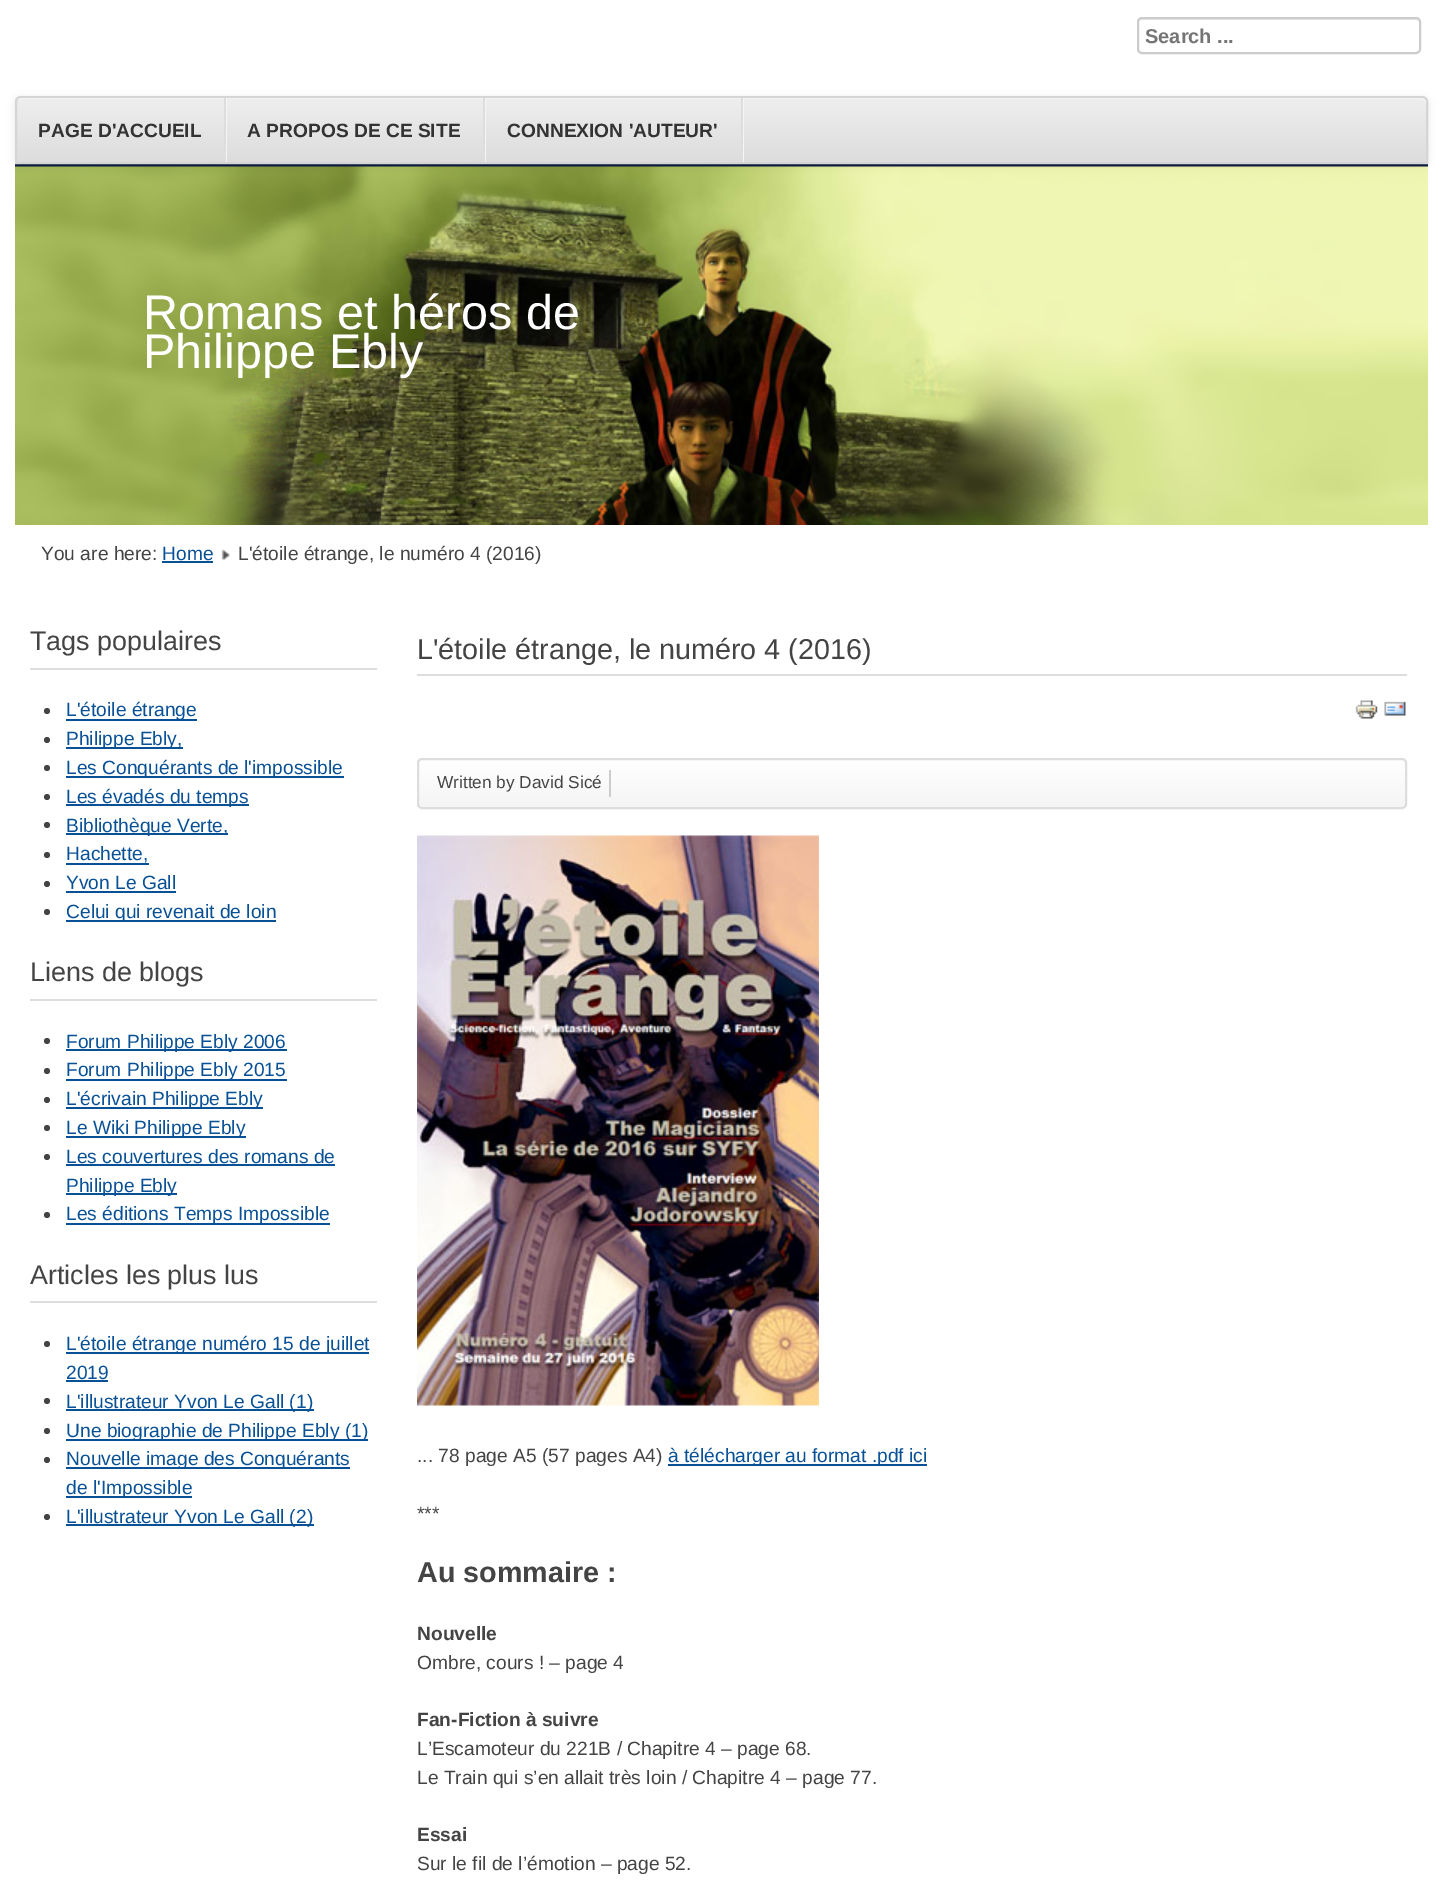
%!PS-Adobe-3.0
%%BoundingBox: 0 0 1442 1903
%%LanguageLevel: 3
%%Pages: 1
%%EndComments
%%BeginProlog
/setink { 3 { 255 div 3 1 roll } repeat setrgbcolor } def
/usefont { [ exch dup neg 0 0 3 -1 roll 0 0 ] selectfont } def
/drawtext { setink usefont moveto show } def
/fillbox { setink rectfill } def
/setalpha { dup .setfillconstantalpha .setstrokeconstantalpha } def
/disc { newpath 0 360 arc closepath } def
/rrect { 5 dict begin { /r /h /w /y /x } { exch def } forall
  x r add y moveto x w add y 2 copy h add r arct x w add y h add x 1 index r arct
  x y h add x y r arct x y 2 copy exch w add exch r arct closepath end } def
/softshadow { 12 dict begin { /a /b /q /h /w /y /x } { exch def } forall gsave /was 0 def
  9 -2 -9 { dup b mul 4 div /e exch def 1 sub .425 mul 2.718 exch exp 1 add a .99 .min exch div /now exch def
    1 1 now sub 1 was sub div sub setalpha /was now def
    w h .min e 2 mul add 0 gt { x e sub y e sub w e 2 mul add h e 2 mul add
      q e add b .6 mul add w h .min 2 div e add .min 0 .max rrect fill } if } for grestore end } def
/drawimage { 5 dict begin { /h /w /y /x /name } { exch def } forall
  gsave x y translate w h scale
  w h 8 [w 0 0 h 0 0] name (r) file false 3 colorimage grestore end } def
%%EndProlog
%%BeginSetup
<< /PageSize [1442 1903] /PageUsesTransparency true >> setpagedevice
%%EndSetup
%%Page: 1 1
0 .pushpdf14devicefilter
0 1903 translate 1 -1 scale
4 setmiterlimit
0 0 1442 1903 255 255 255 fillbox
236 236 236 setink
1142 20 moveto 1416 20 lineto 1418 20 1419 21 1419 22 curveto 1419 21 lineto 1419 19 1418 18 1416 18 curveto 1142 18 lineto 1140 18 1139 19 1139 21 curveto closepath fill
204 204 204 setink
2 setlinewidth
1138 18 282 35 4 rrect stroke
(Search ...) 1145 43 /LiberationSans-Bold 20 117 117 117 drawtext
15 164 1413 3 12 26 62 fillbox
(assets/img1.rgb) 15 166 1413 359 drawimage
0 0 0 setink
15 98 1413 67 6 4 0.1 softshadow
gsave
21 96 moveto 1422 96 lineto 1425.5 96 1428 98.5 1428 102 curveto 1428 164 lineto 15 164 lineto 15 102 lineto 15 98.5 17.5 96 21 96 curveto closepath clip newpath
gsave 15 98 moveto 1428 98 lineto 1428 162 lineto 15 162 lineto closepath clip newpath
<< /ShadingType 2 /ColorSpace /DeviceRGB /Coords [722 97 722 162] /Extend [true true] /Function << /FunctionType 2 /Domain [0 1] /C0 [0.933 0.933 0.933] /C1 [0.867 0.867 0.867] /N 1 >> >> shfill grestore
grestore
255 255 255 setink
21 99 moveto 1422 99 lineto 1424 99 1426 101 1426 104 curveto 1426 162 lineto 1427 162 lineto 1427 103 lineto 1427 100 1425 98 1422 98 curveto 22 98 lineto 20 98 19 99 18 100 curveto closepath fill
213 213 213 setink
21 97 moveto 1422 97 lineto 1425 97 1427 99 1427 102 curveto 1427 163 lineto 16 163 lineto 16 102 lineto 16 99 18 97 21 97 curveto closepath stroke
226 98 1 64 245 245 245 fillbox
224 98 2 54 221 221 221 fillbox
(PAGE D'ACCUEIL) 38 137 /LiberationSans-Bold 19.2 51 51 51 drawtext
485 98 1 64 245 245 245 fillbox
483 98 2 54 221 221 221 fillbox
(A PROPOS DE CE SITE) 247 137 /LiberationSans-Bold 19.2 51 51 51 drawtext
743 98 1 64 245 245 245 fillbox
741 98 2 54 221 221 221 fillbox
(CONNEXION 'AUTEUR') 507 137 /LiberationSans-Bold 19.2 51 51 51 drawtext
(Romans et héros de) 143 329 /LiberationSans-Regular 48.5 255 255 255 drawtext
(Philippe Ebly) 143 368 /LiberationSans-Regular 48.5 255 255 255 drawtext
(You are here:) 41 560 /LiberationSans-Regular 19.2 68 68 68 drawtext
(Home) 162 560 /LiberationSans-Regular 19.2 9 81 151 drawtext
162 561 51 2 9 81 151 fillbox
(assets/img2.rgb) 221 549 9 11 drawimage
(L'étoile étrange, le numéro 4 \(2016\)) 238 560 /LiberationSans-Regular 19.2 68 68 68 drawtext
30 668 347 2 221 221 221 fillbox
(Tags populaires) 30 650 /LiberationSans-Regular 26.9 68 68 68 drawtext
47 711 3 disc fill
66 719 131 2 9 81 151 fillbox
(L'étoile étrange) 66 716 /LiberationSans-Regular 19.2 9 81 151 drawtext
68 68 68 setink
47 740 3 disc fill
66 747 117 2 9 81 151 fillbox
(Philippe Ebly,) 66 745 /LiberationSans-Regular 19.2 9 81 151 drawtext
68 68 68 setink
47 768 3 disc fill
66 776 278 2 9 81 151 fillbox
(Les Conquérants de l'impossible) 66 774 /LiberationSans-Regular 19.2 9 81 151 drawtext
68 68 68 setink
47 797 3 disc fill
66 804 183 2 9 81 151 fillbox
(Les évadés du temps) 66 803 /LiberationSans-Regular 19.2 9 81 151 drawtext
68 68 68 setink
47 825 3 disc fill
66 833 162 2 9 81 151 fillbox
(Bibliothèque Verte,) 66 832 /LiberationSans-Regular 19.2 9 81 151 drawtext
68 68 68 setink
47 855 3 disc fill
(Hachette,) 66 860 /LiberationSans-Regular 19.2 9 81 151 drawtext
66 863 83 2 9 81 151 fillbox
68 68 68 setink
47 884 3 disc fill
(Yvon Le Gall) 66 889 /LiberationSans-Regular 19.2 9 81 151 drawtext
66 891 110 2 9 81 151 fillbox
68 68 68 setink
47 912 3 disc fill
66 920 210 2 9 81 151 fillbox
(Celui qui revenait de loin) 66 918 /LiberationSans-Regular 19.2 9 81 151 drawtext
30 999 347 2 221 221 221 fillbox
(Liens de blogs) 30 981 /LiberationSans-Regular 26.9 68 68 68 drawtext
47 1041 3 disc fill
66 1049 221 2 9 81 151 fillbox
(Forum Philippe Ebly 2006) 66 1048 /LiberationSans-Regular 19.2 9 81 151 drawtext
68 68 68 setink
47 1071 3 disc fill
66 1079 221 2 9 81 151 fillbox
(Forum Philippe Ebly 2015) 66 1076 /LiberationSans-Regular 19.2 9 81 151 drawtext
68 68 68 setink
47 1100 3 disc fill
66 1107 197 2 9 81 151 fillbox
(L'écrivain Philippe Ebly) 66 1105 /LiberationSans-Regular 19.2 9 81 151 drawtext
68 68 68 setink
47 1128 3 disc fill
66 1136 180 2 9 81 151 fillbox
(Le Wiki Philippe Ebly) 66 1134 /LiberationSans-Regular 19.2 9 81 151 drawtext
68 68 68 setink
47 1157 3 disc fill
(Les couvertures des romans de) 66 1163 /LiberationSans-Regular 19.2 9 81 151 drawtext
66 1164 269 2 9 81 151 fillbox
66 1193 111 2 9 81 151 fillbox
(Philippe Ebly) 66 1192 /LiberationSans-Regular 19.2 9 81 151 drawtext
68 68 68 setink
47 1215 3 disc fill
66 1223 264 2 9 81 151 fillbox
(Les éditions Temps Impossible) 66 1220 /LiberationSans-Regular 19.2 9 81 151 drawtext
30 1301 347 2 221 221 221 fillbox
(Articles les plus lus) 30 1284 /LiberationSans-Regular 26.9 68 68 68 drawtext
47 1344 3 disc fill
66 1352 303 2 9 81 151 fillbox
(L'étoile étrange numéro 15 de juillet) 66 1350 /LiberationSans-Regular 19.2 9 81 151 drawtext
(2019) 66 1379 /LiberationSans-Regular 19.2 9 81 151 drawtext
66 1380 42 2 9 81 151 fillbox
68 68 68 setink
47 1401 3 disc fill
66 1409 248 2 9 81 151 fillbox
(L'illustrateur Yvon Le Gall \(1\)) 66 1408 /LiberationSans-Regular 19.2 9 81 151 drawtext
68 68 68 setink
47 1431 3 disc fill
66 1439 302 2 9 81 151 fillbox
(Une biographie de Philippe Ebly \(1\)) 66 1437 /LiberationSans-Regular 19.2 9 81 151 drawtext
68 68 68 setink
47 1460 3 disc fill
66 1467 284 2 9 81 151 fillbox
(Nouvelle image des Conquérants) 66 1465 /LiberationSans-Regular 19.2 9 81 151 drawtext
66 1496 126 2 9 81 151 fillbox
(de l'Impossible) 66 1494 /LiberationSans-Regular 19.2 9 81 151 drawtext
68 68 68 setink
47 1517 3 disc fill
66 1524 248 2 9 81 151 fillbox
(L'illustrateur Yvon Le Gall \(2\)) 66 1523 /LiberationSans-Regular 19.2 9 81 151 drawtext
417 674 990 2 221 221 221 fillbox
(L'étoile étrange, le numéro 4 \(2016\)) 417 659 /LiberationSans-Regular 28.75 68 68 68 drawtext
(assets/img3.rgb) 1355 700 23 19 drawimage
(assets/img4.rgb) 1384 701 22 15 drawimage
gsave
417 758 990 51 5 rrect clip newpath
gsave 417 759 moveto 1407 759 lineto 1407 807 lineto 417 807 lineto closepath clip newpath
<< /ShadingType 2 /ColorSpace /DeviceRGB /Coords [912 759 912 807] /Extend [true true] /Function << /FunctionType 2 /Domain [0 1] /C0 [1 1 1] /C1 [0.961 0.961 0.961] /N 1 >> >> shfill grestore
grestore
221 221 221 setink
418 759 988 49 4 rrect stroke
609 770 2 27 204 204 204 fillbox
(Written by David Sicé) 437 788 /LiberationSans-Regular 17.25 68 68 68 drawtext
(assets/img5.rgb) 417 835 402 571 drawimage
(... 78 page A5 \(57 pages A4\)) 417 1462 /LiberationSans-Regular 19.2 68 68 68 drawtext
668 1464 259 2 9 81 151 fillbox
(à télécharger au format .pdf ici) 668 1462 /LiberationSans-Regular 19.2 9 81 151 drawtext
(***) 417 1520 /LiberationSans-Regular 19.2 68 68 68 drawtext
(Au sommaire :) 417 1582 /LiberationSans-Bold 28.75 68 68 68 drawtext
(Nouvelle) 417 1640 /LiberationSans-Bold 19.2 68 68 68 drawtext
(Ombre, cours ! – page 4) 417 1669 /LiberationSans-Regular 19.2 68 68 68 drawtext
(Fan-Fiction à suivre) 417 1726 /LiberationSans-Bold 19.2 68 68 68 drawtext
(L’Escamoteur du 221B / Chapitre 4 – page 68.) 417 1755 /LiberationSans-Regular 19.2 68 68 68 drawtext
(Le Train qui s’en allait très loin / Chapitre 4 – page 77.) 417 1784 /LiberationSans-Regular 19.2 68 68 68 drawtext
(Essai) 417 1841 /LiberationSans-Bold 19.2 68 68 68 drawtext
(Sur le fil de l’émotion – page 52.) 417 1870 /LiberationSans-Regular 19.2 68 68 68 drawtext
.poppdf14devicefilter showpage
%%EOF
